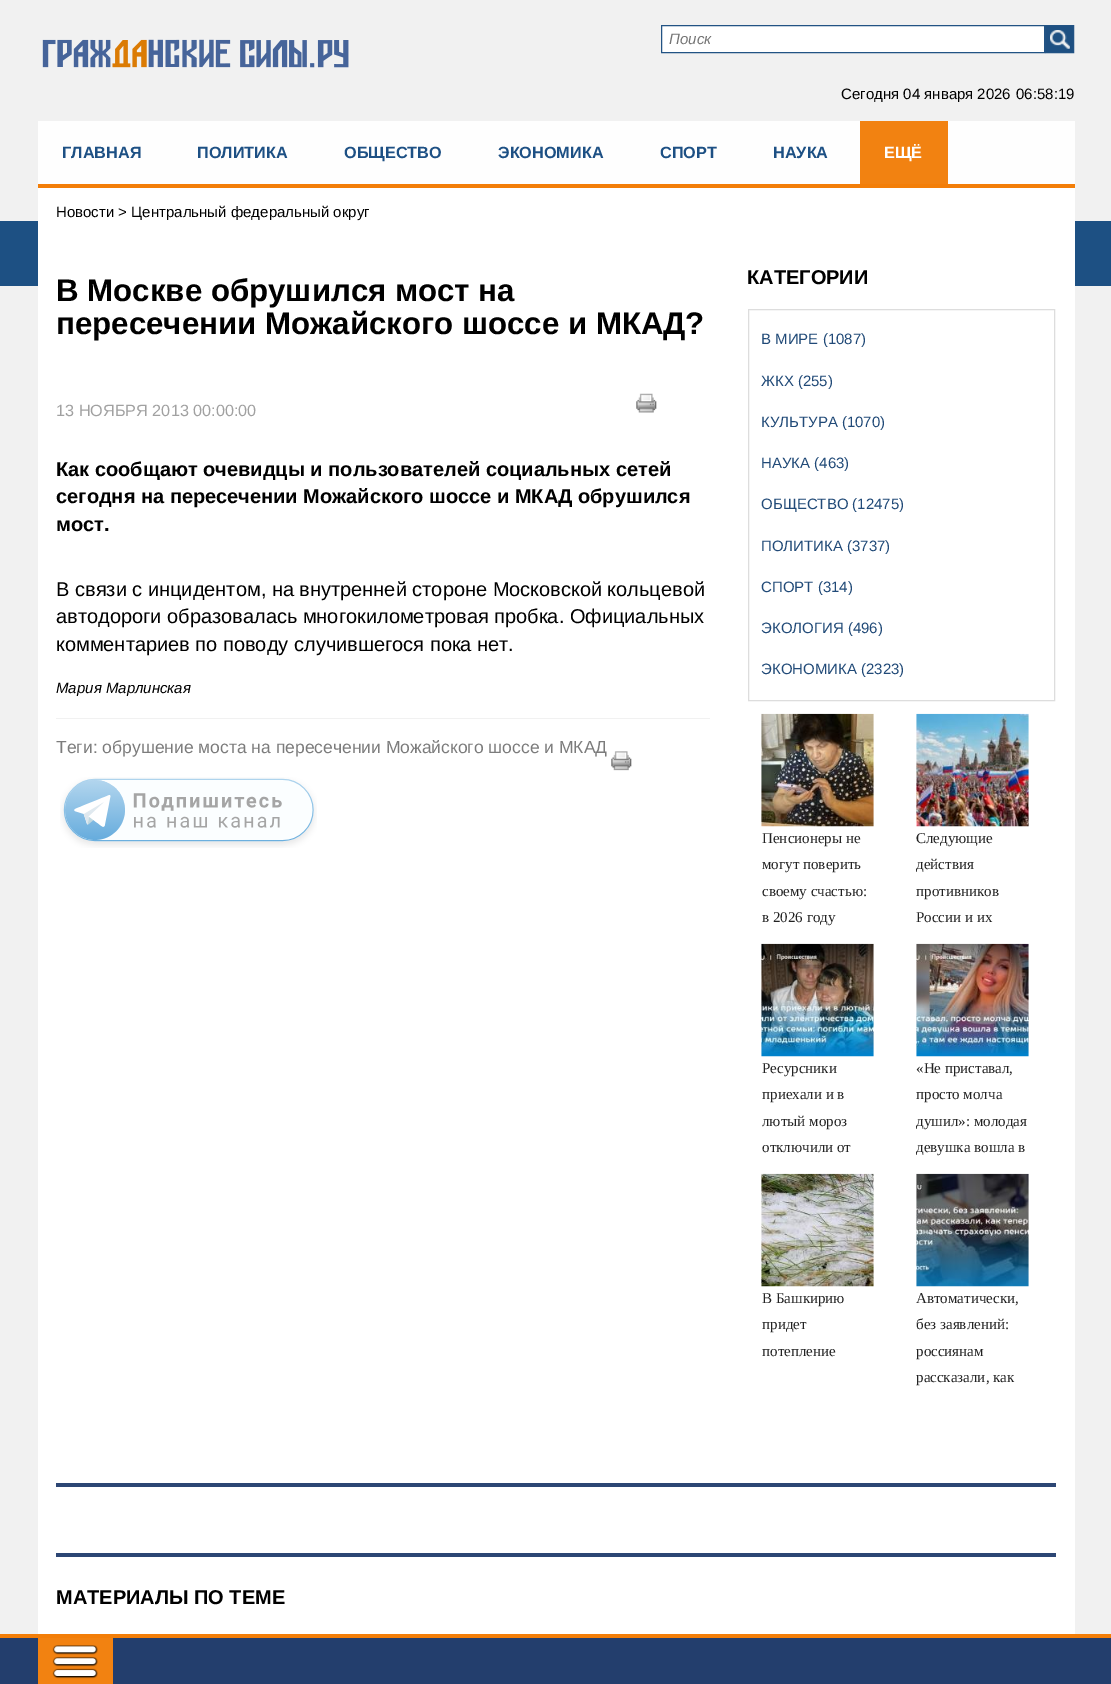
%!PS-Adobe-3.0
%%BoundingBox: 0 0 1111 1684
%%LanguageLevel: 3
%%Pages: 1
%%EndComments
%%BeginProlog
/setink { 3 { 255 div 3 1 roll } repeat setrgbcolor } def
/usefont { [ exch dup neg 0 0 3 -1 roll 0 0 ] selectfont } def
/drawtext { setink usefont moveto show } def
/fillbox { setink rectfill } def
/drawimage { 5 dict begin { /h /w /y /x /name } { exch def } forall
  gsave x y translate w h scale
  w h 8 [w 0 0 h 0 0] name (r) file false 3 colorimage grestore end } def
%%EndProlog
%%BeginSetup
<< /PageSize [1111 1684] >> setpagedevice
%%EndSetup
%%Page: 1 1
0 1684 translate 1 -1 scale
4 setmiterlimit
0 0 1111 1684 241 241 241 fillbox
(assets/img1.rgb) 42 39 307 29 drawimage
255 255 255 setink
661.5 25.5 moveto 1044.5 25.5 lineto 1044.5 52.5 lineto 661.5 52.5 lineto closepath gsave fill grestore
34 83 132 setink
stroke
(Поиск) 669 44 /LiberationSans-Italic 15 117 117 117 drawtext
1046 26 27 26 30 80 130 fillbox
(assets/img2.rgb) 1050 30 20 19 drawimage
34 83 132 setink
1045.5 25.5 28 27 rectstroke
(Сегодня 04 января 2026) 841 99 /LiberationSans-Regular 15 0 0 0 drawtext
(06:58:19) 1016 99 /LiberationSans-Regular 15 0 0 0 drawtext
38 121 1037 63 254 254 254 fillbox
38 184 1037 4 243 126 8 fillbox
(ГЛАВНАЯ) 62 158 /LiberationSans-Bold 16.25 29 80 132 drawtext
(ПОЛИТИКА) 197 158 /LiberationSans-Bold 16.25 29 80 132 drawtext
(ОБЩЕСТВО) 344 158 /LiberationSans-Bold 16.25 29 80 132 drawtext
(ЭКОНОМИКА) 498 158 /LiberationSans-Bold 16.25 29 80 132 drawtext
(СПОРТ) 660 158 /LiberationSans-Bold 16.25 29 80 132 drawtext
(НАУКА) 773 158 /LiberationSans-Bold 16.25 29 80 132 drawtext
860 121 88 63 242 130 17 fillbox
(ЕЩЁ) 884 158 /LiberationSans-Bold 16.25 255 255 255 drawtext
0 221 1111 65 29 80 131 fillbox
38 188 1037 1446 255 255 255 fillbox
(Новости > Центральный федеральный округ) 56 217 /LiberationSans-Regular 15 0 0 0 drawtext
(В Москве обрушился мост на) 56 301 /LiberationSans-Bold 31.25 0 0 0 drawtext
(пересечении Можайского шоссе и МКАД?) 56 334 /LiberationSans-Bold 31.25 0 0 0 drawtext
(assets/img3.rgb) 636 393 21 20 drawimage
(13 НОЯБРЯ 2013 00:00:00) 56 416 /LiberationSans-Regular 16.25 161 161 161 drawtext
(Как сообщают очевидцы и пользователей социальных сетей) 56 476 /LiberationSans-Bold 20 0 0 0 drawtext
(сегодня на пересечении Можайского шоссе и МКАД обрушился) 56 503 /LiberationSans-Bold 20 0 0 0 drawtext
(мост.) 56 531 /LiberationSans-Bold 20 0 0 0 drawtext
(В связи с инцидентом, на внутренней стороне Московской кольцевой) 56 596 /LiberationSans-Regular 20 0 0 0 drawtext
(автодороги образовалась многокилометровая пробка. Официальных) 56 623 /LiberationSans-Regular 20 0 0 0 drawtext
(комментариев по поводу случившегося пока нет.) 56 651 /LiberationSans-Regular 20 0 0 0 drawtext
(Мария Марлинская) 56 693 /LiberationSans-Italic 15 0 0 0 drawtext
56 718 654 1 241 241 241 fillbox
(Теги: обрушение моста на пересечении Можайского шоссе и МКАД) 56 753 /LiberationSans-Regular 17.5 124 124 124 drawtext
(assets/img4.rgb) 611 751 21 20 drawimage
(assets/img5.rgb) 60 777 257 71 drawimage
(КАТЕГОРИИ) 747 284 /LiberationSans-Bold 20 0 0 0 drawtext
221 221 221 setink
748.5 309.5 306 391 rectstroke
(В МИРЕ \(1087\)) 761 344 /LiberationSans-Regular 15 33 74 120 drawtext
(ЖКХ \(255\)) 761 386 /LiberationSans-Regular 15 33 74 120 drawtext
(КУЛЬТУРА \(1070\)) 761 427 /LiberationSans-Regular 15 33 74 120 drawtext
(НАУКА \(463\)) 761 468 /LiberationSans-Regular 15 33 74 120 drawtext
(ОБЩЕСТВО \(12475\)) 761 509 /LiberationSans-Regular 15 33 74 120 drawtext
(ПОЛИТИКА \(3737\)) 761 551 /LiberationSans-Regular 15 33 74 120 drawtext
(СПОРТ \(314\)) 761 592 /LiberationSans-Regular 15 33 74 120 drawtext
(ЭКОЛОГИЯ \(496\)) 761 633 /LiberationSans-Regular 15 33 74 120 drawtext
(ЭКОНОМИКА \(2323\)) 761 674 /LiberationSans-Regular 15 33 74 120 drawtext
(assets/img6.rgb) 761 713 113 114 drawimage
(Пенсионеры не) 762 843 /LiberationSerif-Regular 15 35 35 35 drawtext
(могут поверить) 762 869 /LiberationSerif-Regular 15 35 35 35 drawtext
(своему счастью:) 762 896 /LiberationSerif-Regular 15 35 35 35 drawtext
(в 2026 году) 762 922 /LiberationSerif-Regular 15 35 35 35 drawtext
(assets/img7.rgb) 916 713 113 114 drawimage
(Следующие) 916 843 /LiberationSerif-Regular 15 35 35 35 drawtext
(действия) 916 869 /LiberationSerif-Regular 15 35 35 35 drawtext
(противников) 916 896 /LiberationSerif-Regular 15 35 35 35 drawtext
(России и их) 916 922 /LiberationSerif-Regular 15 35 35 35 drawtext
(assets/img8.rgb) 761 943 113 114 drawimage
(Ресурсники) 762 1073 /LiberationSerif-Regular 15 35 35 35 drawtext
(приехали и в) 762 1099 /LiberationSerif-Regular 15 35 35 35 drawtext
(лютый мороз) 762 1126 /LiberationSerif-Regular 15 35 35 35 drawtext
(отключили от) 762 1152 /LiberationSerif-Regular 15 35 35 35 drawtext
(assets/img9.rgb) 916 943 113 114 drawimage
(«Не приставал,) 916 1073 /LiberationSerif-Regular 15 35 35 35 drawtext
(просто молча) 916 1099 /LiberationSerif-Regular 15 35 35 35 drawtext
(душил»: молодая) 916 1126 /LiberationSerif-Regular 15 35 35 35 drawtext
(девушка вошла в) 916 1152 /LiberationSerif-Regular 15 35 35 35 drawtext
(assets/img10.rgb) 761 1173 113 114 drawimage
(В Башкирию) 762 1303 /LiberationSerif-Regular 15 35 35 35 drawtext
(придет) 762 1329 /LiberationSerif-Regular 15 35 35 35 drawtext
(потепление) 762 1356 /LiberationSerif-Regular 15 35 35 35 drawtext
(assets/img11.rgb) 916 1173 113 114 drawimage
(Автоматически,) 916 1303 /LiberationSerif-Regular 15 35 35 35 drawtext
(без заявлений:) 916 1329 /LiberationSerif-Regular 15 35 35 35 drawtext
(россиянам) 916 1356 /LiberationSerif-Regular 15 35 35 35 drawtext
(рассказали, как) 916 1382 /LiberationSerif-Regular 15 35 35 35 drawtext
56 1483 1000 4 44 70 116 fillbox
56 1553 1000 4 44 70 116 fillbox
(МАТЕРИАЛЫ ПО ТЕМЕ) 56 1604 /LiberationSans-Bold 20 0 0 0 drawtext
0 1638 1111 46 35 62 109 fillbox
0 1634 1111 4 243 126 8 fillbox
38 1638 75 46 242 130 17 fillbox
(assets/img12.rgb) 52 1645 46 34 drawimage
showpage
%%EOF
